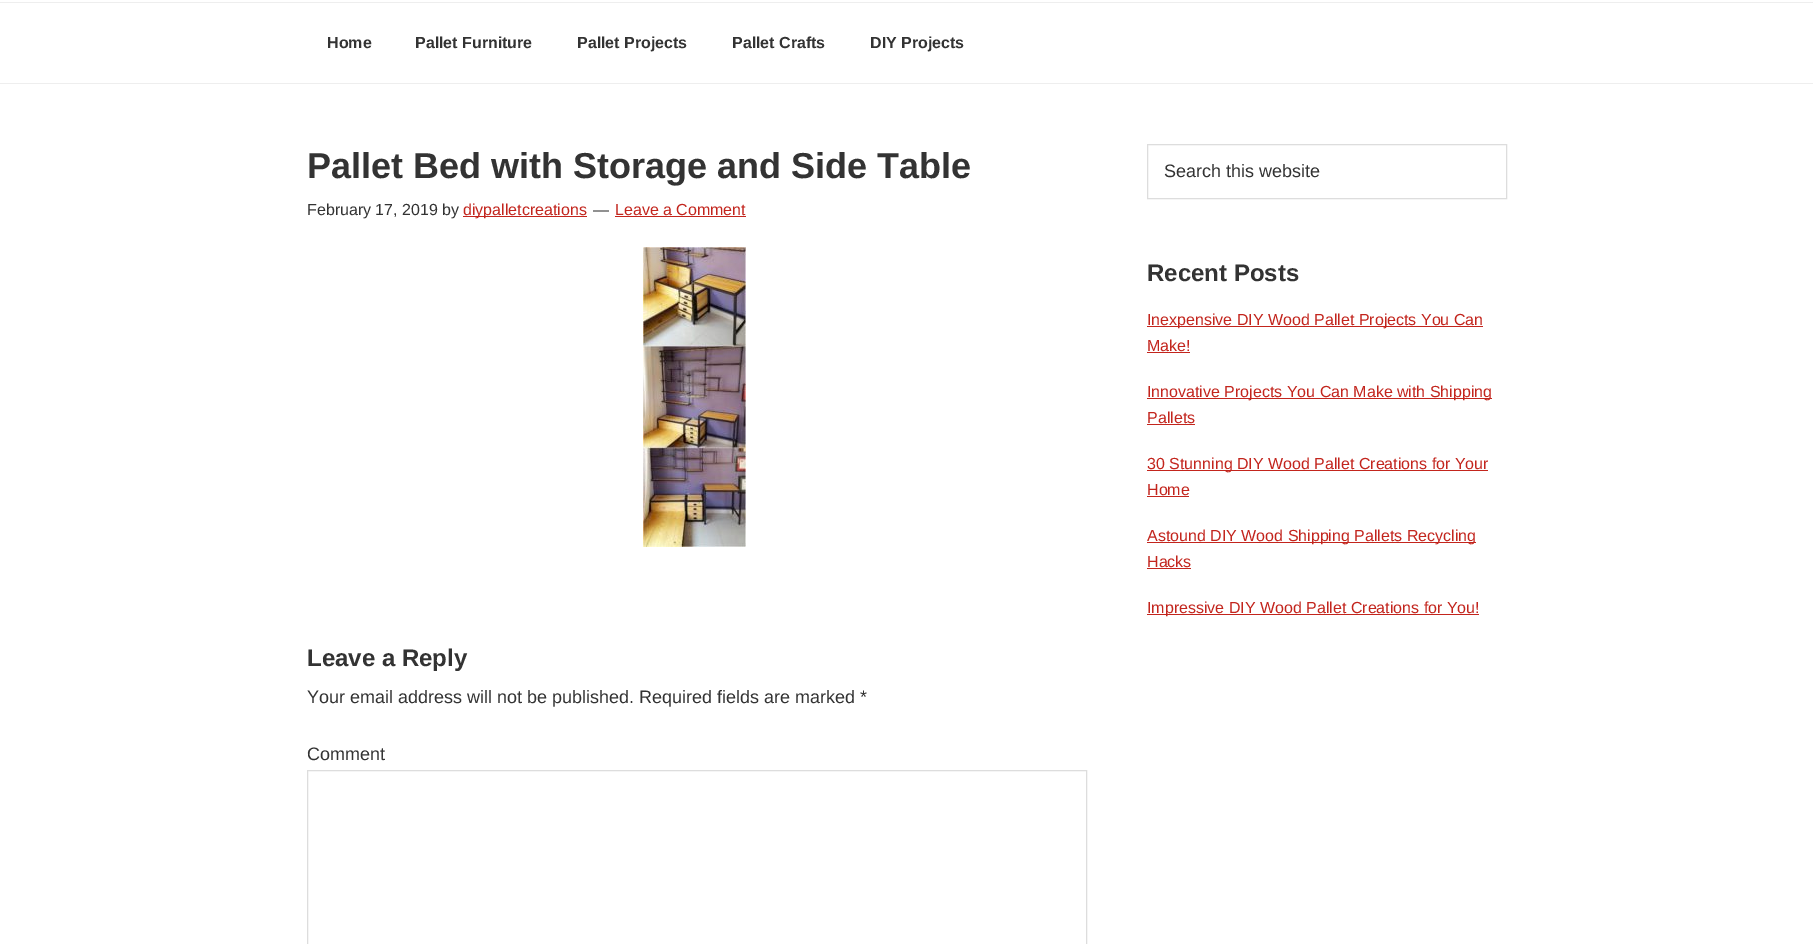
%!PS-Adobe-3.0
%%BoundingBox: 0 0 1813 944
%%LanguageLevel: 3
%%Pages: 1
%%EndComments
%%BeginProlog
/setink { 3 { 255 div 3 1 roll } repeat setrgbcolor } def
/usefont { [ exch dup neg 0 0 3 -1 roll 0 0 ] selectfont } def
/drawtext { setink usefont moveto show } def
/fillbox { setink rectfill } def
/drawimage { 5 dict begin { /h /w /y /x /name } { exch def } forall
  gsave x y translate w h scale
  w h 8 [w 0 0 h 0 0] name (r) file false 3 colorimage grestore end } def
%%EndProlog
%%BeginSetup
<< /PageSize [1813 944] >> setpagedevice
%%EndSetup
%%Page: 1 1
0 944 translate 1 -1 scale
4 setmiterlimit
0 0 1813 944 255 255 255 fillbox
0 2 1813 1 238 238 238 fillbox
0 83 1813 1 238 238 238 fillbox
(Home) 327 48 /LiberationSans-Bold 16 51 51 51 drawtext
(Pallet Furniture) 415 48 /LiberationSans-Bold 16 51 51 51 drawtext
(Pallet Projects) 577 48 /LiberationSans-Bold 16 51 51 51 drawtext
(Pallet Crafts) 732 48 /LiberationSans-Bold 16 51 51 51 drawtext
(DIY Projects) 870 48 /LiberationSans-Bold 16 51 51 51 drawtext
(Pallet Bed with Storage and Side Table) 307 178 /LiberationSans-Bold 36 51 51 51 drawtext
(February 17, 2019 by) 307 215 /LiberationSans-Regular 16 51 51 51 drawtext
463 216 124 1 195 37 29 fillbox
(diypalletcreations) 463 215 /LiberationSans-Regular 16 195 37 29 drawtext
(—) 593 215 /LiberationSans-Regular 16 51 51 51 drawtext
(Leave a Comment) 615 215 /LiberationSans-Regular 16 195 37 29 drawtext
615 216 131 1 195 37 29 fillbox
(assets/img1.rgb) 643 247 103 300 drawimage
(Leave a Reply) 307 666 /LiberationSans-Bold 24 51 51 51 drawtext
(Your email address will not be published. Required fields are marked *) 307 703 /LiberationSans-Regular 18 51 51 51 drawtext
(Comment) 307 760 /LiberationSans-Regular 18 51 51 51 drawtext
221 221 221 setink
307.5 770.5 779 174 rectstroke
1147.5 144.5 359 54 rectstroke
(Search this website) 1164 177 /LiberationSans-Regular 18 51 51 51 drawtext
(Recent Posts) 1147 281 /LiberationSans-Bold 24 51 51 51 drawtext
1147 326 336 1 195 37 29 fillbox
(Inexpensive DIY Wood Pallet Projects You Can) 1147 325 /LiberationSans-Regular 16 195 37 29 drawtext
(Make!) 1147 351 /LiberationSans-Regular 16 195 37 29 drawtext
1147 352 43 1 195 37 29 fillbox
1147 398 345 1 195 37 29 fillbox
(Innovative Projects You Can Make with Shipping) 1147 397 /LiberationSans-Regular 16 195 37 29 drawtext
(Pallets) 1147 423 /LiberationSans-Regular 16 195 37 29 drawtext
1147 424 48 1 195 37 29 fillbox
1147 470 341 1 195 37 29 fillbox
(30 Stunning DIY Wood Pallet Creations for Your) 1147 469 /LiberationSans-Regular 16 195 37 29 drawtext
(Home) 1147 495 /LiberationSans-Regular 16 195 37 29 drawtext
1147 496 42 1 195 37 29 fillbox
1147 542 329 1 195 37 29 fillbox
(Astound DIY Wood Shipping Pallets Recycling) 1147 541 /LiberationSans-Regular 16 195 37 29 drawtext
(Hacks) 1147 567 /LiberationSans-Regular 16 195 37 29 drawtext
1147 568 44 1 195 37 29 fillbox
1147 614 332 1 195 37 29 fillbox
(Impressive DIY Wood Pallet Creations for You!) 1147 613 /LiberationSans-Regular 16 195 37 29 drawtext
showpage
%%EOF
